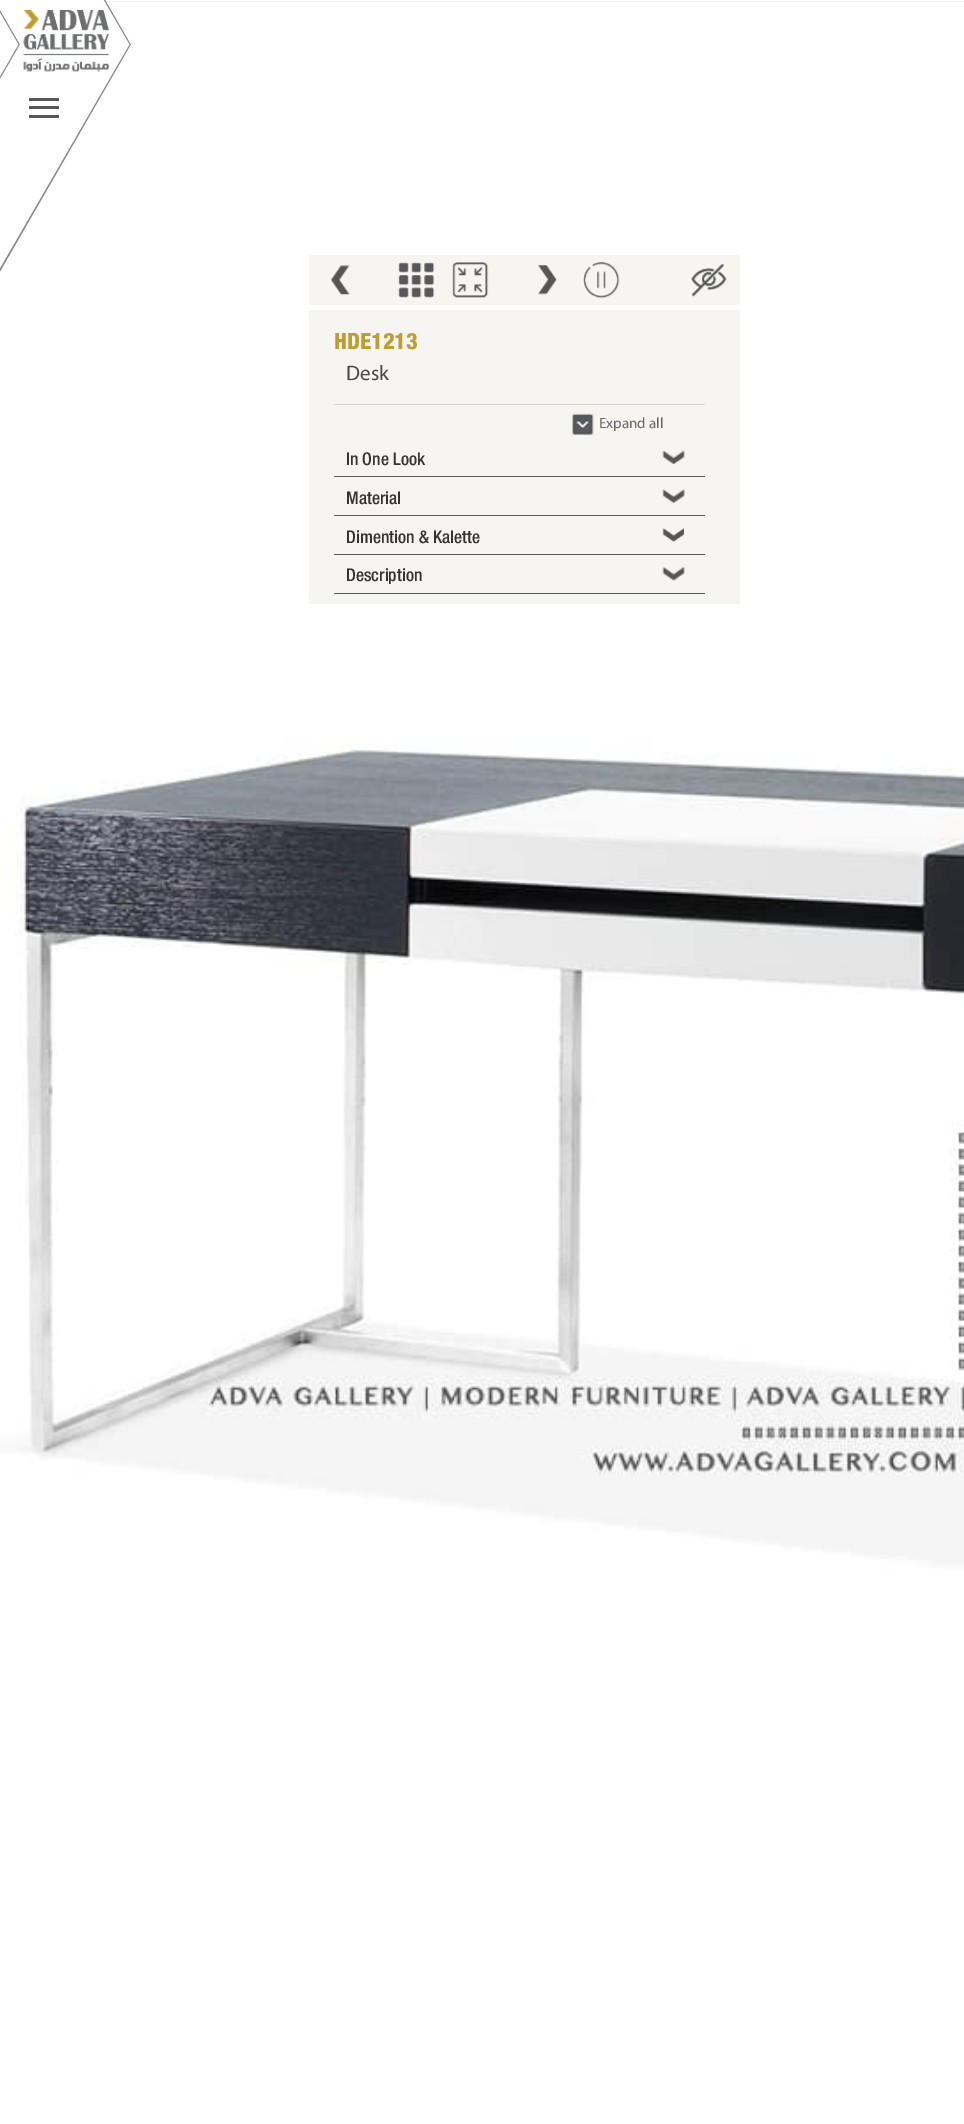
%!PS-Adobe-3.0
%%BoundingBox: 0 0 964 2124
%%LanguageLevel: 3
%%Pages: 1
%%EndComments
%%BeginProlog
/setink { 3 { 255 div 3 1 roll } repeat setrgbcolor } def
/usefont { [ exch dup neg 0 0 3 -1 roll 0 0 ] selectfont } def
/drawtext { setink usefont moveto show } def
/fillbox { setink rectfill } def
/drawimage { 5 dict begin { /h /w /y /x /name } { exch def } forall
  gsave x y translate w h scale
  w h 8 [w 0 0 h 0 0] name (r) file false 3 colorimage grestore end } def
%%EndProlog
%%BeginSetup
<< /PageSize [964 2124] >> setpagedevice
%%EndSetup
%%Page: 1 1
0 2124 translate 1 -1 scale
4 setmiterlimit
0 0 964 2124 255 255 255 fillbox
105 1 859 1 228 228 228 fillbox
(assets/img3.rgb) 0 1 964 2123 drawimage
134 134 134 setink
130 44 moveto 131 44 lineto -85 419 lineto -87 419 lineto closepath fill
19 44 moveto 20 44 lineto -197 419 lineto -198 419 lineto closepath fill
255 255 255 setink
-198 -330 moveto -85 -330 lineto 131 45 lineto 19 45 lineto closepath fill
134 134 134 setink
-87 -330 moveto -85 -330 lineto 131 45 lineto 130 45 lineto closepath fill
-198 -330 moveto -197 -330 lineto 20 45 lineto 19 45 lineto closepath fill
(assets/img1.rgb) 23 10 86 62 drawimage
(assets/img2.rgb) 23 10 16 20 drawimage
29 98 30 3 88 88 90 fillbox
29 106 30 3 88 88 90 fillbox
29 115 30 3 88 88 90 fillbox
309 255 431 50 247 245 241 fillbox
(assets/img4.rgb) 331 265 19 30 drawimage
(assets/img5.rgb) 398 262 37 36 drawimage
(assets/img6.rgb) 452 262 37 36 drawimage
(assets/img7.rgb) 538 265 19 30 drawimage
(assets/img8.rgb) 583 262 37 37 drawimage
(assets/img9.rgb) 691 264 36 33 drawimage
309 310 431 294 247 245 241 fillbox
(HDE1213) 334 349 /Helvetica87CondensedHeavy-Black 22.5 188 158 50 drawtext
(Desk) 346 380 /Myriad-Regular 21 77 72 68 drawtext
(assets/img10.rgb) 571 413 24 24 drawimage
(Expand all) 599 428 /Myriad-Regular 15 102 102 102 drawtext
334 404 371 1 215 215 215 fillbox
334 476 371 1 87 90 93 fillbox
(In One Look) 346 465 /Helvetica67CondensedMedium-Medium 17.5 51 51 51 drawtext
(assets/img11.rgb) 662 450 23 15 drawimage
334 515 371 1 87 90 93 fillbox
(Material) 346 504 /Helvetica67CondensedMedium-Medium 17.5 51 51 51 drawtext
(assets/img12.rgb) 662 489 23 15 drawimage
334 554 371 1 87 90 93 fillbox
(Dimention & Kalette) 346 543 /Helvetica67CondensedMedium-Medium 17.5 51 51 51 drawtext
(assets/img13.rgb) 662 528 22 14 drawimage
334 593 371 1 87 90 93 fillbox
(Description) 346 581 /Helvetica67CondensedMedium-Medium 17.5 51 51 51 drawtext
(assets/img14.rgb) 662 566 23 15 drawimage
showpage
%%EOF
